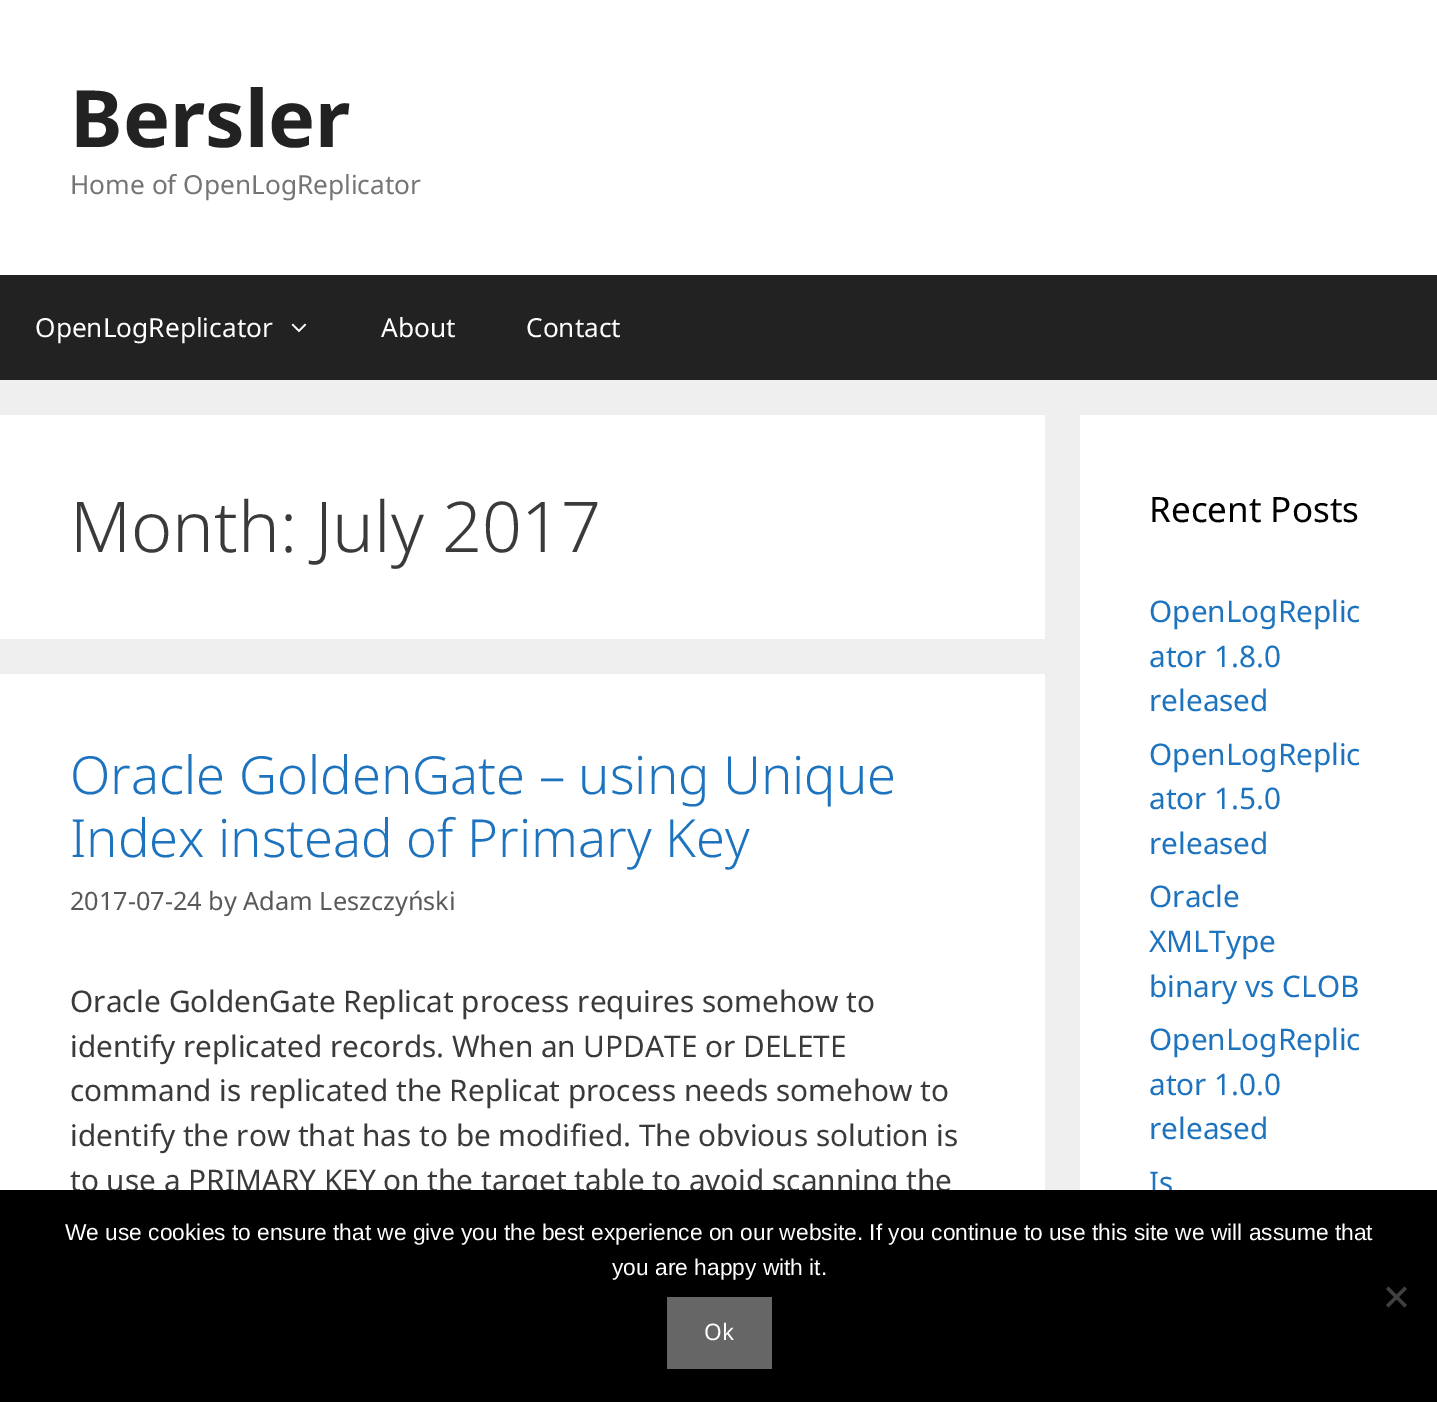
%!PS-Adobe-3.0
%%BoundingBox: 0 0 1437 1402
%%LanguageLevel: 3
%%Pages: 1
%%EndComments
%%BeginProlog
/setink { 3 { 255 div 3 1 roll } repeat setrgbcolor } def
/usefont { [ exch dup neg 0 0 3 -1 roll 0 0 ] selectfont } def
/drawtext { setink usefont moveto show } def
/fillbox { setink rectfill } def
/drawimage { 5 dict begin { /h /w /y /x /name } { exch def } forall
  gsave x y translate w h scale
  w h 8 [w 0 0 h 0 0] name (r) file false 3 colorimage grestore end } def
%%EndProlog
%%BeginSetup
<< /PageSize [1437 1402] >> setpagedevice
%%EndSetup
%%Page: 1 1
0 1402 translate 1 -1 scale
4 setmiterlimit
0 0 1437 1402 239 239 239 fillbox
0 0 1437 275 255 255 255 fillbox
(Bersler) 70 147 /NotoSans-Bold 79 34 34 34 drawtext
(Home of OpenLogReplicator) 70 194 /NotoSans-Regular 26.25 117 117 117 drawtext
0 275 1437 105 34 34 34 fillbox
(OpenLogReplicator) 35 337 /NotoSans-Regular 26.25 255 255 255 drawtext
(assets/img1.rgb) 291 323 16 10 drawimage
(About) 381 337 /NotoSans-Regular 26.25 255 255 255 drawtext
(Contact) 526 337 /NotoSans-Regular 26.25 255 255 255 drawtext
0 415 1045 224 255 255 255 fillbox
(Month: July 2017) 70 552 /NotoSans-Light 70 58 58 58 drawtext
0 674 1045 516 255 255 255 fillbox
(Oracle GoldenGate – using Unique) 70 794 /NotoSans-Light 52.5 30 115 190 drawtext
(Index instead of Primary Key) 70 857 /NotoSans-Light 52.5 30 115 190 drawtext
(2017-07-24 by Adam Leszczyński) 70 910 /NotoSans-Regular 25.25 89 89 89 drawtext
(Oracle GoldenGate Replicat process requires somehow to) 70 1012 /NotoSans-Regular 29.75 58 58 58 drawtext
(identify replicated records. When an UPDATE or DELETE) 70 1057 /NotoSans-Regular 29.75 58 58 58 drawtext
(command is replicated the Replicat process needs somehow to) 70 1101 /NotoSans-Regular 29.75 58 58 58 drawtext
(identify the row that has to be modified. The obvious solution is) 70 1146 /NotoSans-Regular 29.75 58 58 58 drawtext
(to use a PRIMARY KEY on the target table to avoid scanning the) 70 1191 /NotoSans-Regular 29.75 58 58 58 drawtext
1080 415 357 775 255 255 255 fillbox
(Recent Posts) 1149 522 /NotoSans-Regular 35 0 0 0 drawtext
(OpenLogReplic) 1149 622 /NotoSans-Regular 29.75 30 115 190 drawtext
(ator 1.8.0) 1149 667 /NotoSans-Regular 29.75 30 115 190 drawtext
(released) 1149 711 /NotoSans-Regular 29.75 30 115 190 drawtext
(OpenLogReplic) 1149 765 /NotoSans-Regular 29.75 30 115 190 drawtext
(ator 1.5.0) 1149 809 /NotoSans-Regular 29.75 30 115 190 drawtext
(released) 1149 854 /NotoSans-Regular 29.75 30 115 190 drawtext
(Oracle) 1149 907 /NotoSans-Regular 29.75 30 115 190 drawtext
(XMLType) 1149 952 /NotoSans-Regular 29.75 30 115 190 drawtext
(binary vs CLOB) 1149 997 /NotoSans-Regular 29.75 30 115 190 drawtext
(OpenLogReplic) 1149 1050 /NotoSans-Regular 29.75 30 115 190 drawtext
(ator 1.0.0) 1149 1095 /NotoSans-Regular 29.75 30 115 190 drawtext
(released) 1149 1139 /NotoSans-Regular 29.75 30 115 190 drawtext
(Is) 1149 1193 /NotoSans-Regular 29.75 30 115 190 drawtext
0 1190 1437 212 0 0 0 fillbox
(We use cookies to ensure that we give you the best experience on our website. If you continue to use this site we will assume that) 65 1240 /LiberationSans-Regular 22.75 255 255 255 drawtext
(you are happy with it.) 612 1275 /LiberationSans-Regular 22.75 255 255 255 drawtext
64 64 64 setink
1404.5 1286.5 moveto 1407 1289 lineto 1388.5 1307.5 lineto 1386 1305 lineto closepath fill
1386 1289 moveto 1388.5 1286.5 lineto 1407 1305 lineto 1404.5 1307.5 lineto closepath fill
667 1297 105 72 102 102 102 fillbox
(Ok) 704 1340 /NotoSans-Regular 22.75 255 255 255 drawtext
showpage
%%EOF
